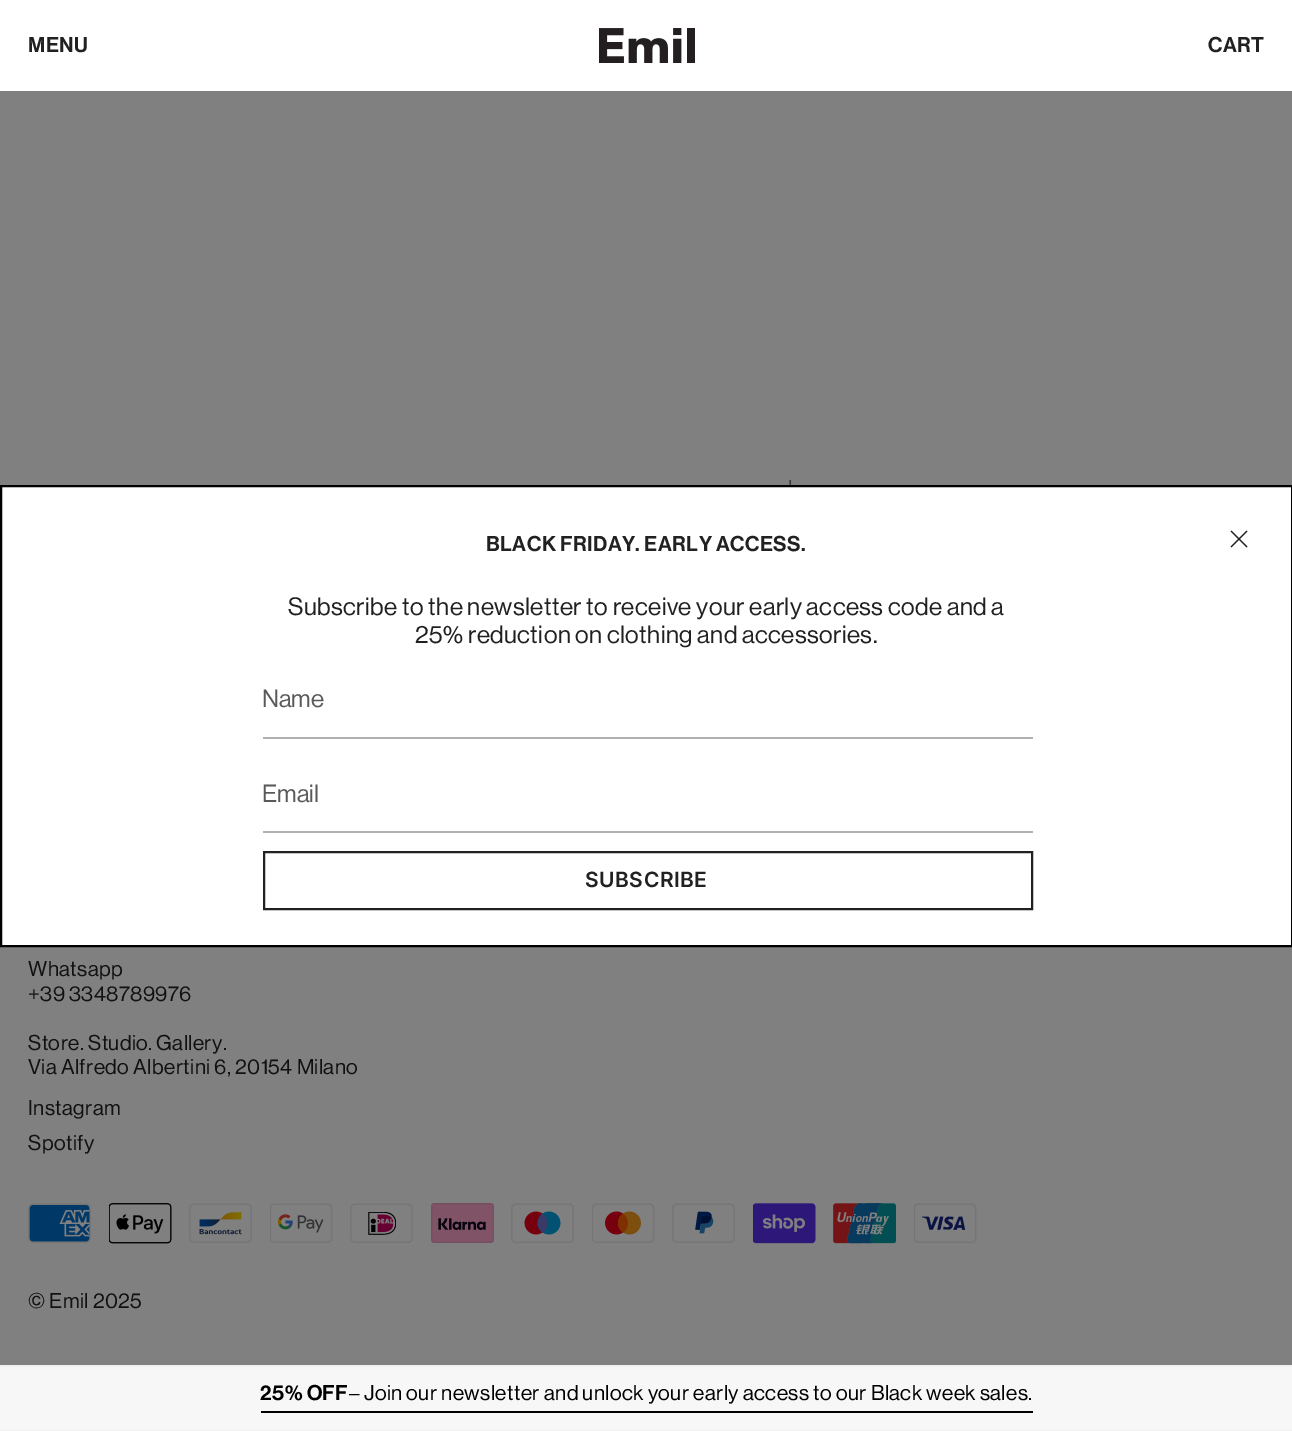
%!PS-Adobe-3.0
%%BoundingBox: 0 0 1292 1431
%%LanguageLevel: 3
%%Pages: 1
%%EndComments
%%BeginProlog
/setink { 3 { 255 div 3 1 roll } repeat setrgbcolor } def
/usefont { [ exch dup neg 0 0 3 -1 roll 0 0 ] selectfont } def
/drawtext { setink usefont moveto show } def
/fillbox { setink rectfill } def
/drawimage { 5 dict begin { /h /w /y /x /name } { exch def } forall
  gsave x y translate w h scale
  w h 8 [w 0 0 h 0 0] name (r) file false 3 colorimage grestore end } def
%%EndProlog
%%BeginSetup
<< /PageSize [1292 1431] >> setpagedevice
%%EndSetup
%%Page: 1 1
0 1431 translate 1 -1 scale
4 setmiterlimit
0 0 1292 1431 128 128 128 fillbox
0 0 1292 91 255 255 255 fillbox
/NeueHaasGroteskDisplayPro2-Medium 21 usefont
33 33 33 setink
28 52 moveto 0.5 0 (MENU) ashow
(assets/img1.rgb) 599 28 96 35 drawimage
1208 52 moveto 0.5 0 (CART) ashow
0 1367 1292 63 247 247 247 fillbox
0 1365 1292 2 240 240 240 fillbox
0 1430 1292 1 240 240 240 fillbox
261 1411 772 2 0 0 0 fillbox
260 1400 moveto 0.45 0 (25% OFF) ashow
/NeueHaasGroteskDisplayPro-Medium 21 usefont
349 1400 moveto 0.45 0 (– Join our newsletter and unlock your early access to our Black week sales.) ashow
255 255 255 setink
1 486 moveto 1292 486 lineto 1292 946 lineto 1 946 lineto closepath gsave fill grestore
0 0 0 setink
2 setlinewidth
stroke
/NeueHaasGroteskDisplayPro2-Medium 21 usefont
33 33 33 setink
486 551 moveto 0.45 0 (BLACK FRIDAY. EARLY ACCESS.) ashow
/NeueHaasGroteskDisplayPro-Medium 24.5 usefont
288 615 moveto 0.45 0 (Subscribe to the newsletter to receive your early access code and a) ashow
415 643 moveto 0.45 0 (25% reduction on clothing and accessories.) ashow
263 737 770 2 177 177 177 fillbox
(Name) 262 707 /NeueHaasGroteskDisplayPro-Medium 24.5 89 89 89 drawtext
263 831 770 2 177 177 177 fillbox
(Email) 262 802 /NeueHaasGroteskDisplayPro-Medium 24.5 89 89 89 drawtext
33 33 33 setink
264 852 768 57 rectstroke
/Inter-SemiBold 21 usefont
585 887 moveto 0.5 0 (SUBSCRIBE) ashow
(assets/img2.rgb) 1230 530 18 18 drawimage
(assets/img3.rgb) 789 480 2 5 drawimage
/NeueHaasGroteskDisplayPro-Medium 21 usefont
17 17 17 setink
28 976 moveto 0.45 0 (Whatsapp) ashow
28 1001 moveto 0.45 0 (+39 3348789976) ashow
28 1050 moveto 0.45 0 (Store. Studio. Gallery.) ashow
28 1074 moveto 0.45 0 (Via Alfredo Albertini 6, 20154 Milano) ashow
28 1115 moveto 0.45 0 (Instagram) ashow
28 1150 moveto 0.45 0 (Spotify) ashow
(assets/img4.rgb) 28 1203 63 40 drawimage
(assets/img5.rgb) 109 1203 63 41 drawimage
(assets/img6.rgb) 189 1203 63 40 drawimage
(assets/img7.rgb) 270 1203 63 40 drawimage
(assets/img8.rgb) 350 1203 63 40 drawimage
(assets/img9.rgb) 431 1203 63 40 drawimage
(assets/img10.rgb) 511 1203 63 40 drawimage
(assets/img11.rgb) 592 1203 63 40 drawimage
(assets/img12.rgb) 672 1203 63 40 drawimage
(assets/img13.rgb) 753 1203 63 41 drawimage
(assets/img14.rgb) 833 1203 63 41 drawimage
(assets/img15.rgb) 914 1203 63 40 drawimage
28 1308 moveto 0.45 0 (© Emil 2025) ashow
showpage
%%EOF
